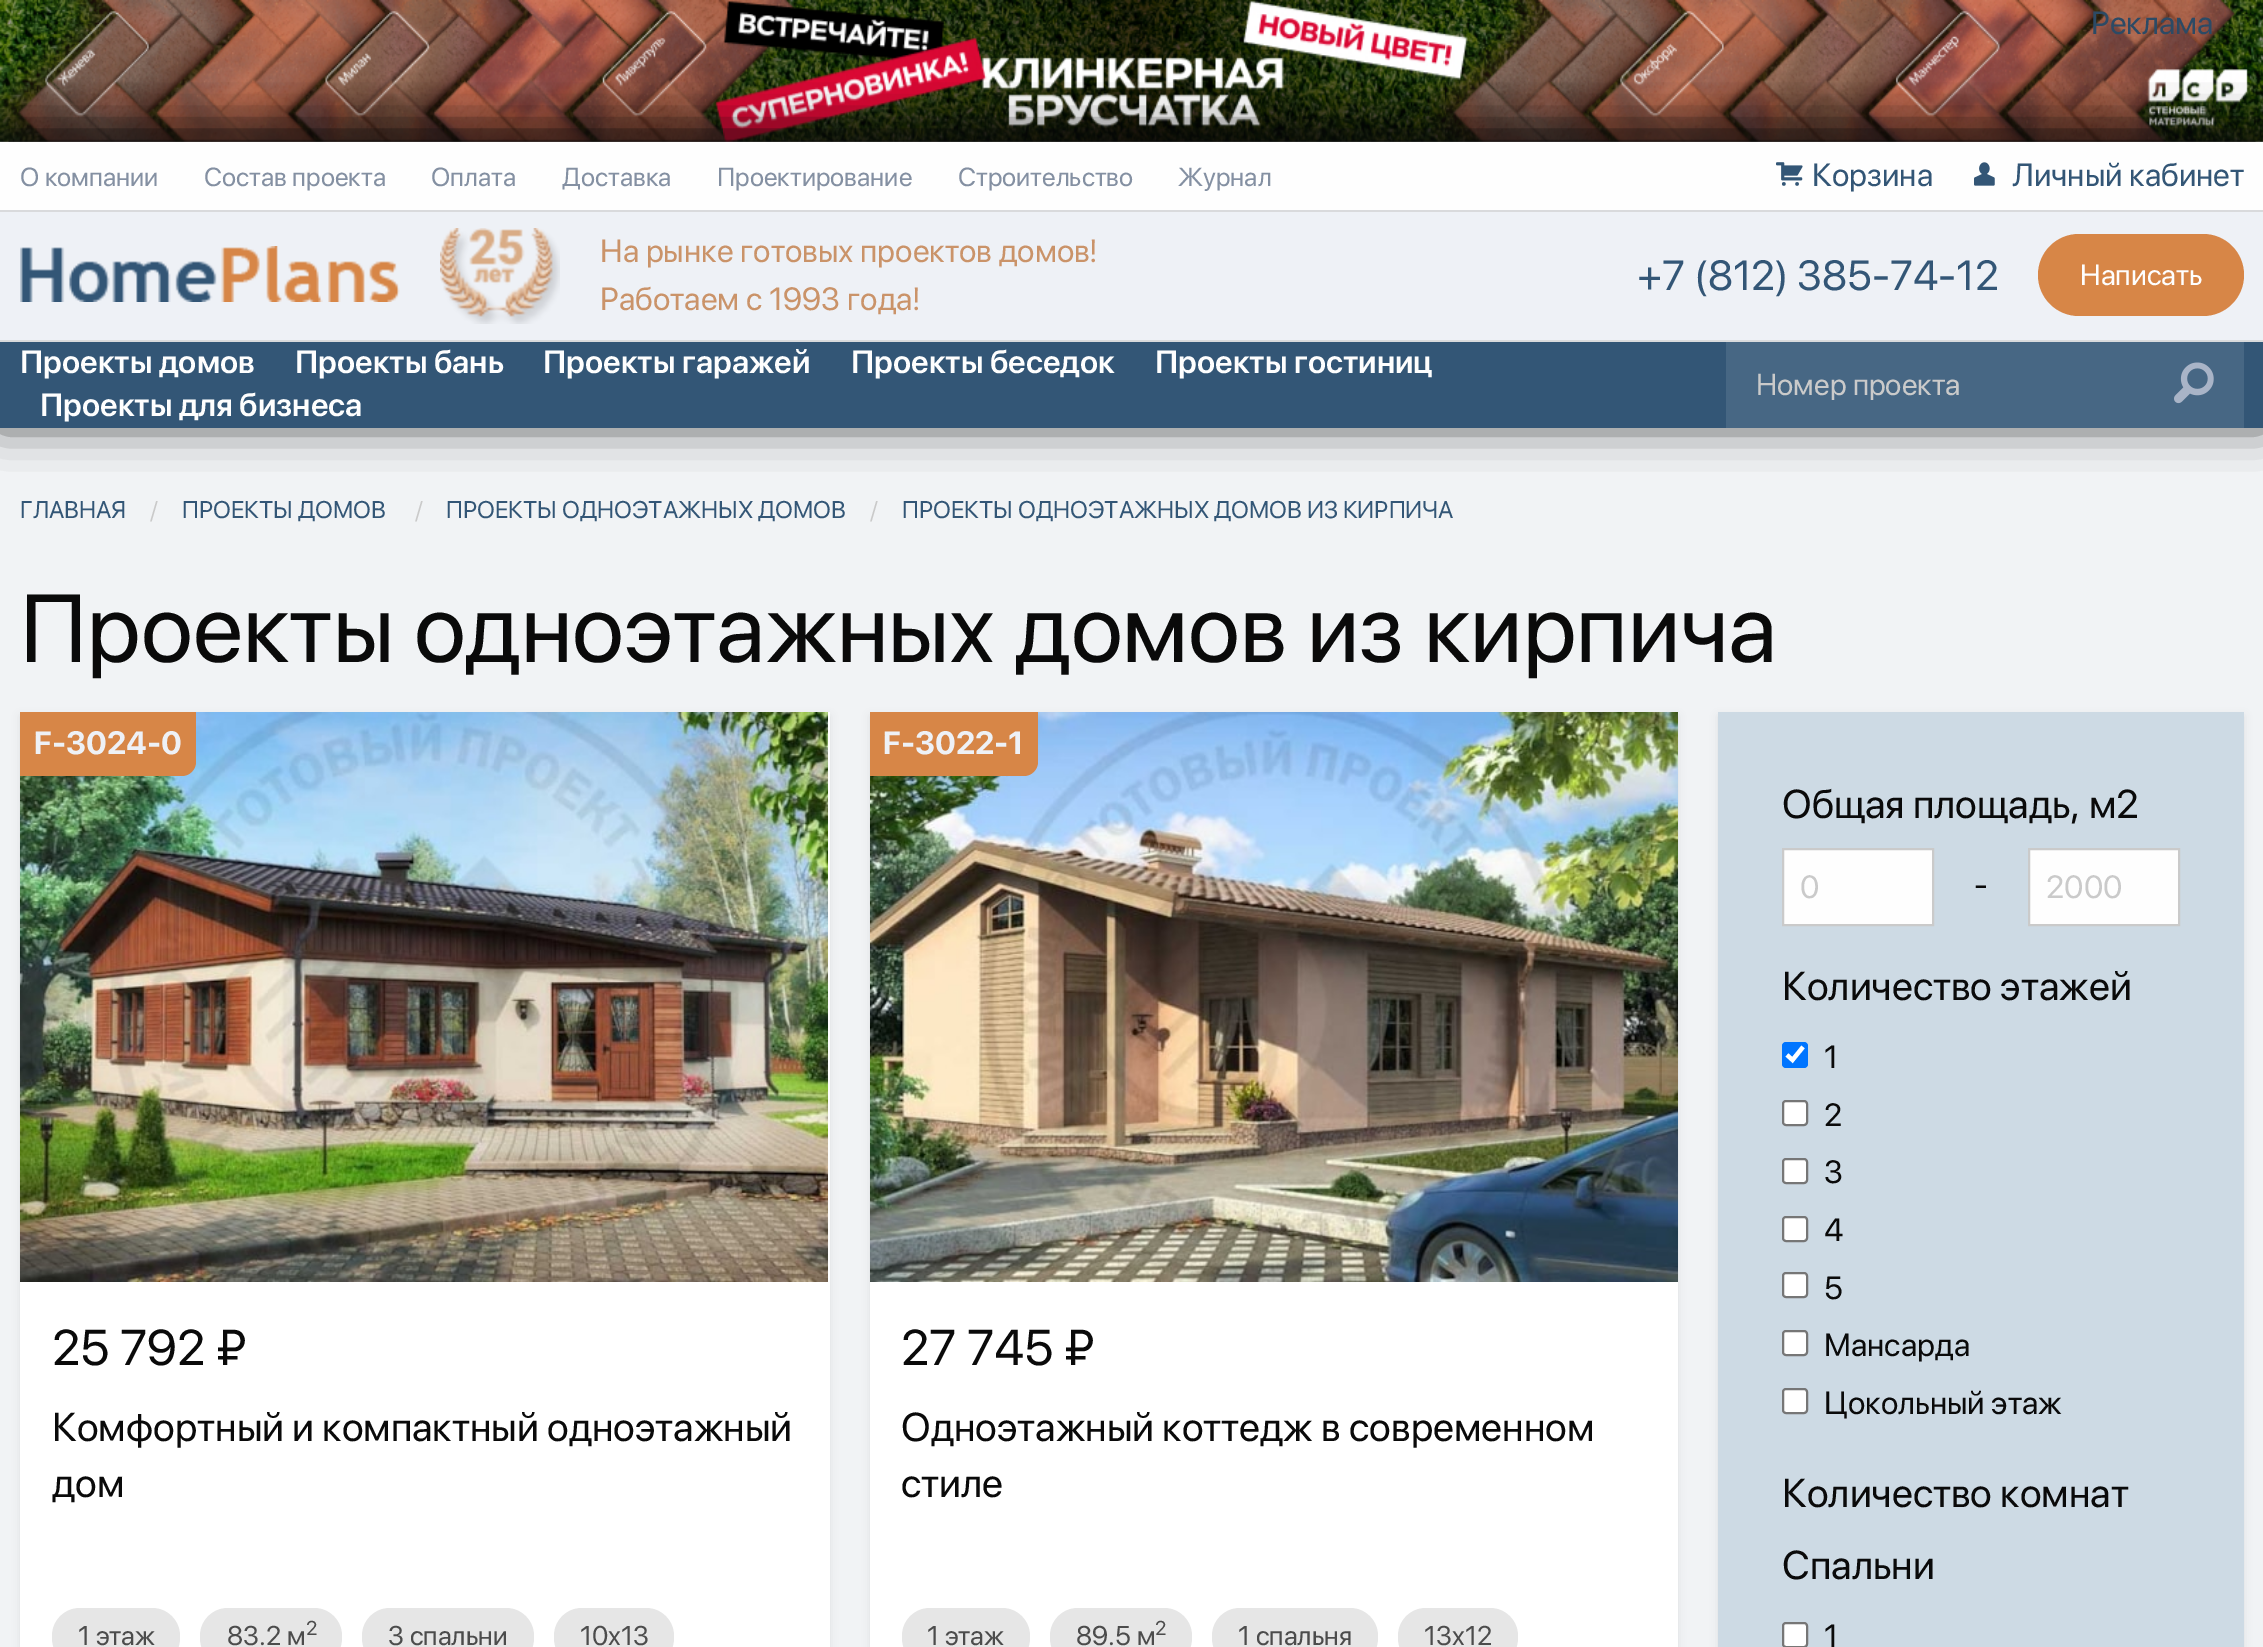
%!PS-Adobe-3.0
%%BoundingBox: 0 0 2263 1647
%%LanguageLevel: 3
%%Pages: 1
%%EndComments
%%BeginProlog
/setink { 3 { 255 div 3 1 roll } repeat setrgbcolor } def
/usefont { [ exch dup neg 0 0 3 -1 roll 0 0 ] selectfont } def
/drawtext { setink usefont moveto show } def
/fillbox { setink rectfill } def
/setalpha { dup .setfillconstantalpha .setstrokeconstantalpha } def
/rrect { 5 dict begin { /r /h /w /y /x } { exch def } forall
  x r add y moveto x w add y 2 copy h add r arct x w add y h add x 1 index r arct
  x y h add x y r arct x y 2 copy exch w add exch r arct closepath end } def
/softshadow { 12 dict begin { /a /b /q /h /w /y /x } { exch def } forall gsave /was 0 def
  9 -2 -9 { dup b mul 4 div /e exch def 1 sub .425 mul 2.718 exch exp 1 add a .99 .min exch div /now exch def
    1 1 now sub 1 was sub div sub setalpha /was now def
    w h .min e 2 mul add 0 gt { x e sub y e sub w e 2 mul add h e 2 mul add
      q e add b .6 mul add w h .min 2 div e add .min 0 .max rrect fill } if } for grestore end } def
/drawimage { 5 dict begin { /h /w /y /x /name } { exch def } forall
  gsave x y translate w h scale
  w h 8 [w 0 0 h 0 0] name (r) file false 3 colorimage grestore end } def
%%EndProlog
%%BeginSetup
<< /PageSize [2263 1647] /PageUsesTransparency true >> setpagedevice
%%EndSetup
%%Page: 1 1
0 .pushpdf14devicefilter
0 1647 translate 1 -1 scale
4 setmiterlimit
0 0 2263 1647 241 243 245 fillbox
(assets/img1.rgb) 0 0 2263 142 drawimage
(Реклама) 2091 34 /SFProDisplay-Regular 32 44 74 101 drawtext
10 10 10 setink
0 134 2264 286 0 23 1 softshadow
0 142 2263 68 254 254 254 fillbox
0 210 2263 2 217 218 220 fillbox
(О компании) 20 186 /SFProDisplay-Regular 26 132 144 162 drawtext
(Состав проекта) 204 186 /SFProDisplay-Regular 26 132 144 162 drawtext
(Оплата) 431 186 /SFProDisplay-Regular 26 132 144 162 drawtext
(Доставка) 562 186 /SFProDisplay-Regular 26 132 144 162 drawtext
(Проектирование) 717 186 /SFProDisplay-Regular 26 132 144 162 drawtext
(Строительство) 958 186 /SFProDisplay-Regular 26 132 144 162 drawtext
(Журнал) 1178 186 /SFProDisplay-Regular 26 132 144 162 drawtext
(assets/img2.rgb) 1776 162 27 24 drawimage
(Корзина) 1812 186 /SFProDisplay-Regular 32 51 86 118 drawtext
(assets/img3.rgb) 1974 162 21 24 drawimage
(Личный кабинет) 2012 186 /SFProDisplay-Regular 32 51 86 118 drawtext
0 212 2263 128 238 241 246 fillbox
0 340 2263 2 217 218 220 fillbox
(assets/img4.rgb) 20 246 380 56 drawimage
(assets/img5.rgb) 440 228 120 96 drawimage
(На рынке готовых проектов домов!) 600 262 /SFProDisplay-Regular 32 202 147 105 drawtext
(Работаем с 1993 года!) 600 310 /SFProDisplay-Regular 32 202 147 105 drawtext
(+7 \(812\) 385-74-12) 1637 290 /SFProDisplay-Regular 42 51 86 118 drawtext
215 134 71 setink
2038 234 206 82 41 rrect fill
(Написать) 2080 285 /SFProDisplay-Regular 29 254 254 254 drawtext
0 342 2263 86 51 86 118 fillbox
(Проекты домов) 20 373 /SFProDisplay-SemiBold 32 254 254 254 drawtext
(Проекты бань) 295 373 /SFProDisplay-SemiBold 32 254 254 254 drawtext
(Проекты гаражей) 543 373 /SFProDisplay-SemiBold 32 254 254 254 drawtext
(Проекты беседок) 851 373 /SFProDisplay-SemiBold 32 254 254 254 drawtext
(Проекты гостиниц) 1155 373 /SFProDisplay-SemiBold 32 254 254 254 drawtext
(Проекты для бизнеса) 40 416 /SFProDisplay-SemiBold 32 254 254 254 drawtext
1726 342 518 86 71 103 132 fillbox
(Номер проекта) 1756 395 /SFProDisplay-Regular 30 202 202 202 drawtext
(assets/img6.rgb) 2174 362 40 42 drawimage
(ГЛАВНАЯ) 20 518 /SFProDisplay-Regular 24 51 86 118 drawtext
(/) 150 518 /SFProDisplay-Regular 24 202 202 202 drawtext
(ПРОЕКТЫ ДОМОВ) 182 518 /SFProDisplay-Regular 24 51 86 118 drawtext
(/) 415 518 /SFProDisplay-Regular 24 202 202 202 drawtext
(ПРОЕКТЫ ОДНОЭТАЖНЫХ ДОМОВ) 446 518 /SFProDisplay-Regular 24 51 86 118 drawtext
(/) 870 518 /SFProDisplay-Regular 24 202 202 202 drawtext
(ПРОЕКТЫ ОДНОЭТАЖНЫХ ДОМОВ ИЗ КИРПИЧА) 902 518 /SFProDisplay-Regular 24 51 86 118 drawtext
(Проекты одноэтажных домов из кирпича) 20 662 /SFProDisplay-Regular 96 10 10 10 drawtext
0 0 0 setink
20 716 810 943 0 4 0.07 softshadow
20 712 810 935 255 255 255 fillbox
(assets/img7.rgb) 20 712 808 570 drawimage
215 134 71 setink
20 712 moveto 196 712 lineto 196 762 lineto 196 769.5 189.5 776 182 776 curveto 20 776 lineto closepath fill
(F-3024-0) 34 754 /SFProDisplay-Bold 32 238 241 246 drawtext
(25 792 ₽) 52 1365 /SFProDisplay-Regular 50 10 10 10 drawtext
(Комфортный и компактный одноэтажный) 52 1441 /SFProDisplay-Regular 40 10 10 10 drawtext
(дом) 52 1497 /SFProDisplay-Regular 40 10 10 10 drawtext
230 230 230 setink
52 1608 128 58 28 rrect fill
(1 этаж) 78 1645 /SFProDisplay-Regular 27 76 76 76 drawtext
230 230 230 setink
200 1608 142 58 28 rrect fill
(83.2 м) 227 1645 /SFProDisplay-Regular 27 76 76 76 drawtext
(2) 306 1635 /SFProDisplay-Regular 20 76 76 76 drawtext
230 230 230 setink
362 1608 172 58 28 rrect fill
(3 спальни) 388 1645 /SFProDisplay-Regular 27 76 76 76 drawtext
230 230 230 setink
554 1608 120 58 28 rrect fill
(10x13) 580 1645 /SFProDisplay-Regular 27 76 76 76 drawtext
0 0 0 setink
870 716 808 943 0 4 0.07 softshadow
870 1282 808 365 255 255 255 fillbox
(assets/img8.rgb) 870 712 808 570 drawimage
215 134 71 setink
870 712 moveto 1038 712 lineto 1038 762 lineto 1038 769.5 1031.5 776 1024 776 curveto 870 776 lineto closepath fill
(F-3022-1) 883 754 /SFProDisplay-Bold 32 238 241 246 drawtext
(27 745 ₽) 901 1365 /SFProDisplay-Regular 50 10 10 10 drawtext
(Одноэтажный коттедж в современном) 901 1441 /SFProDisplay-Regular 40 10 10 10 drawtext
(стиле) 901 1497 /SFProDisplay-Regular 40 10 10 10 drawtext
230 230 230 setink
902 1608 128 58 28 rrect fill
(1 этаж) 927 1645 /SFProDisplay-Regular 27 76 76 76 drawtext
230 230 230 setink
1050 1608 142 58 28 rrect fill
(89.5 м) 1076 1645 /SFProDisplay-Regular 27 76 76 76 drawtext
(2) 1155 1635 /SFProDisplay-Regular 20 76 76 76 drawtext
230 230 230 setink
1212 1608 166 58 28 rrect fill
(1 спальня) 1238 1645 /SFProDisplay-Regular 27 76 76 76 drawtext
230 230 230 setink
1398 1608 120 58 28 rrect fill
(13x12) 1424 1645 /SFProDisplay-Regular 27 76 76 76 drawtext
0 0 0 setink
1718 716 526 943 0 4 0.07 softshadow
1718 712 526 935 205 218 228 fillbox
(Общая площадь, м2) 1782 818 /SFProDisplay-Regular 40 10 10 10 drawtext
254 254 254 setink
1783 849 moveto 1933 849 lineto 1933 925 lineto 1783 925 lineto closepath gsave fill grestore
202 202 202 setink
2 setlinewidth
stroke
(0) 1800 898 /SFProDisplay-Regular 32 202 202 202 drawtext
(-) 1974 896 /SFProDisplay-Regular 32 10 10 10 drawtext
254 254 254 setink
2029 849 moveto 2179 849 lineto 2179 925 lineto 2029 925 lineto closepath gsave fill grestore
202 202 202 setink
stroke
(2000) 2046 898 /SFProDisplay-Regular 32 202 202 202 drawtext
(Количество этажей) 1782 1000 /SFProDisplay-Regular 40 10 10 10 drawtext
0 117 255 setink
1782 1042 26 26 4 rrect fill
255 255 255 setink
4.2 setlinewidth
1787 1055 moveto 1792.5 1060 lineto 1803 1047 lineto stroke
(1) 1824 1068 /SFProDisplay-Regular 32 10 10 10 drawtext
255 255 255 setink
1783 1101 24 24 3 rrect gsave fill grestore
118 118 118 setink
2 setlinewidth
stroke
(2) 1824 1126 /SFProDisplay-Regular 32 10 10 10 drawtext
255 255 255 setink
1783 1159 24 24 3 rrect gsave fill grestore
118 118 118 setink
stroke
(3) 1824 1183 /SFProDisplay-Regular 32 10 10 10 drawtext
255 255 255 setink
1783 1217 24 24 3 rrect gsave fill grestore
118 118 118 setink
stroke
(4) 1824 1241 /SFProDisplay-Regular 32 10 10 10 drawtext
255 255 255 setink
1783 1273 24 24 3 rrect gsave fill grestore
118 118 118 setink
stroke
(5) 1824 1299 /SFProDisplay-Regular 32 10 10 10 drawtext
255 255 255 setink
1783 1331 24 24 3 rrect gsave fill grestore
118 118 118 setink
stroke
(Мансарда) 1824 1356 /SFProDisplay-Regular 32 10 10 10 drawtext
255 255 255 setink
1783 1389 24 24 3 rrect gsave fill grestore
118 118 118 setink
stroke
(Цокольный этаж) 1824 1414 /SFProDisplay-Regular 32 10 10 10 drawtext
(Количество комнат) 1782 1507 /SFProDisplay-Regular 40 10 10 10 drawtext
(Спальни) 1782 1579 /SFProDisplay-Regular 40 10 10 10 drawtext
255 255 255 setink
1783 1623 24 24 3 rrect gsave fill grestore
118 118 118 setink
stroke
(1) 1824 1647 /SFProDisplay-Regular 32 10 10 10 drawtext
.poppdf14devicefilter showpage
%%EOF
